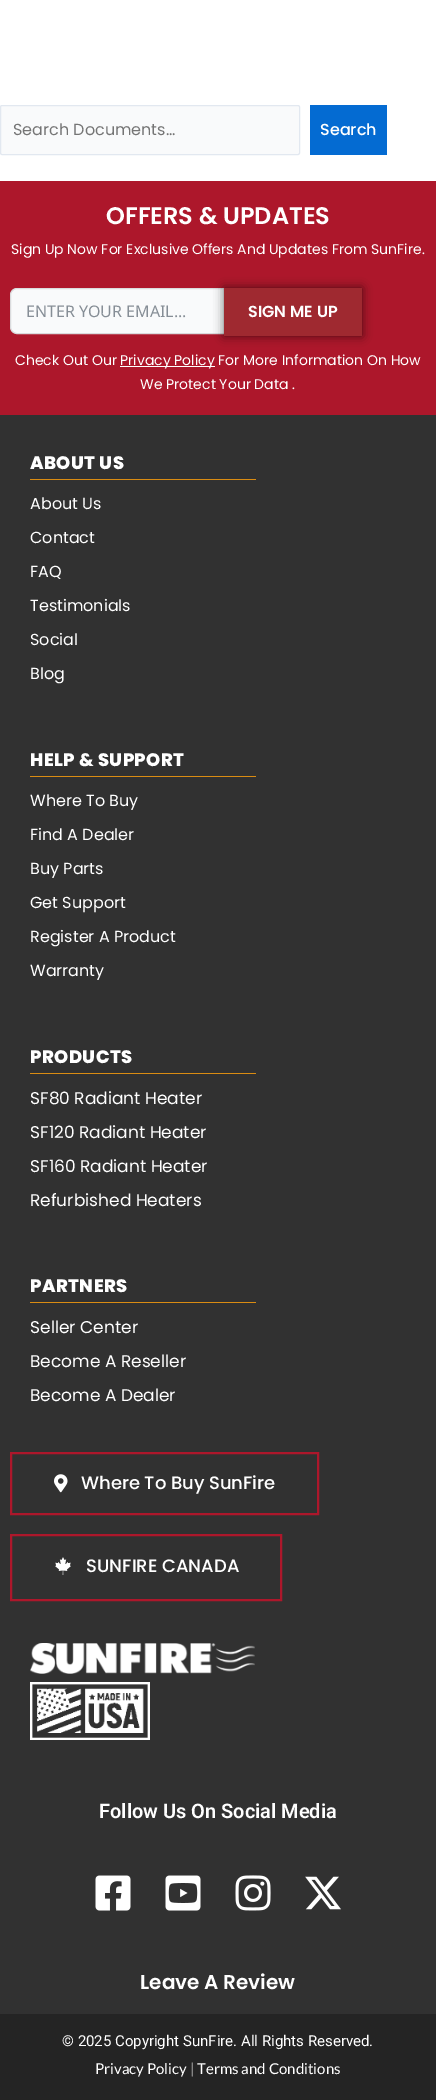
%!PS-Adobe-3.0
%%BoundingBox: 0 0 436 2100
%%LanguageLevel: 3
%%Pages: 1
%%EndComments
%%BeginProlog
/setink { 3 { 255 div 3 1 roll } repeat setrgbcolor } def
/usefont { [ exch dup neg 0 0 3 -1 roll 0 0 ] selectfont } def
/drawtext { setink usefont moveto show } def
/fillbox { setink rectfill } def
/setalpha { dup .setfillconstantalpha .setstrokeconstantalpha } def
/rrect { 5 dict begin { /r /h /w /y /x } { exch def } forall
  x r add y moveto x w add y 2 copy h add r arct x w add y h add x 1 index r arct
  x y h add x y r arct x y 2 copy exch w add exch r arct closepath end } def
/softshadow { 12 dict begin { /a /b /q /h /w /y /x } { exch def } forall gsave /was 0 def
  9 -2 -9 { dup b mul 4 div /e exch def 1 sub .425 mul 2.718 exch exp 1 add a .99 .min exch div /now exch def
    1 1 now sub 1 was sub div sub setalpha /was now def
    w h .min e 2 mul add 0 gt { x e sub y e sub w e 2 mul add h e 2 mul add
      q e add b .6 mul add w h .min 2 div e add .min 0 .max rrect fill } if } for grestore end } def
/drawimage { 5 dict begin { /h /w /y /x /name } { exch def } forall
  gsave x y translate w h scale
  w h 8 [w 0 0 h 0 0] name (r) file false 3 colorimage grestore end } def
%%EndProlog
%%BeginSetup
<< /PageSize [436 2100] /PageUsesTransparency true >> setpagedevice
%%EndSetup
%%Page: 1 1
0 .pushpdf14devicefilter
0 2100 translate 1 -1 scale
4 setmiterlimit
0 0 436 2100 255 255 255 fillbox
249 250 251 setink
0.5 105.5 299 49 1.5 rrect gsave fill grestore
226 232 240 setink
stroke
(Search Documents...) 13 135 /Poppins-Regular 16 117 117 117 drawtext
310 105 77 50 4 107 210 fillbox
(Search) 320 135 /Poppins-Medium 16 255 255 255 drawtext
0 181 436 234 173 23 43 fillbox
(OFFERS & UPDATES) 106 224 /Poppins-SemiBold 24 255 255 255 drawtext
(Sign Up Now For Exclusive Offers And Updates From SunFire.) 11 254 /Poppins-Regular 14 255 255 255 drawtext
249 250 251 setink
10.5 288.5 269 45 6.5 rrect gsave fill grestore
218 219 221 setink
stroke
(ENTER YOUR EMAIL...) 26 317 /NotoSans-Regular 16 134 142 150 drawtext
0 0 0 setink
224 288 138 48 0 5 0.58 softshadow
224 288 138 48 159 41 48 fillbox
(SIGN ME UP) 248 317 /Poppins-SemiBold 16 255 255 255 drawtext
(Check Out Our) 15 365 /Poppins-Regular 14 255 255 255 drawtext
120 366 95 1 255 255 255 fillbox
(Privacy Policy For More Information On How) 120 365 /Poppins-Regular 14 255 255 255 drawtext
(We Protect Your Data .) 140 389 /Poppins-Regular 14 255 255 255 drawtext
0 415 436 1599 49 49 49 fillbox
/Poppins-ExtraBold 18 usefont
255 255 255 setink
30 469 moveto 0.4 0 (ABOUT US) ashow
30 479 226 1 218 140 18 fillbox
(About Us) 30 509 /Poppins-Regular 16 255 255 255 drawtext
(Contact) 30 543 /Poppins-Regular 16 255 255 255 drawtext
(FAQ) 30 577 /Poppins-Regular 16 255 255 255 drawtext
(Testimonials) 30 611 /Poppins-Regular 16 255 255 255 drawtext
(Social) 30 645 /Poppins-Regular 16 255 255 255 drawtext
(Blog) 30 679 /Poppins-Regular 16 255 255 255 drawtext
/Poppins-ExtraBold 18 usefont
30 766 moveto 0.4 0 (HELP & SUPPORT) ashow
30 776 226 1 218 140 18 fillbox
(Where To Buy) 30 806 /Poppins-Regular 16 255 255 255 drawtext
(Find A Dealer) 30 840 /Poppins-Regular 16 255 255 255 drawtext
(Buy Parts) 30 874 /Poppins-Regular 16 255 255 255 drawtext
(Get Support) 30 908 /Poppins-Regular 16 255 255 255 drawtext
(Register A Product) 30 942 /Poppins-Regular 16 255 255 255 drawtext
(Warranty) 30 976 /Poppins-Regular 16 255 255 255 drawtext
/Poppins-ExtraBold 18 usefont
30 1063 moveto 0.4 0 (PRODUCTS) ashow
30 1073 226 1 218 140 18 fillbox
(SF80 Radiant Heater) 30 1104 /Poppins-Regular 17 255 255 255 drawtext
(SF120 Radiant Heater) 30 1138 /Poppins-Regular 17 255 255 255 drawtext
(SF160 Radiant Heater) 30 1172 /Poppins-Regular 17 255 255 255 drawtext
(Refurbished Heaters) 30 1206 /Poppins-Regular 17 255 255 255 drawtext
/Poppins-ExtraBold 18 usefont
30 1292 moveto 0.4 0 (PARTNERS) ashow
30 1302 226 1 218 140 18 fillbox
(Seller Center) 30 1333 /Poppins-Regular 17 255 255 255 drawtext
(Become A Reseller) 30 1367 /Poppins-Regular 17 255 255 255 drawtext
(Become A Dealer) 30 1401 /Poppins-Regular 17 255 255 255 drawtext
173 23 43 setink
2 setlinewidth
11 1453 307 61 rectstroke
(assets/img1.rgb) 54 1474 14 19 drawimage
(Where To Buy SunFire) 81 1489 /Poppins-Medium 18 255 255 255 drawtext
173 23 43 setink
11 1535 270 65 rectstroke
(assets/img2.rgb) 55 1557 16 18 drawimage
(SUNFIRE CANADA) 86 1572 /Poppins-Medium 18 255 255 255 drawtext
(assets/img3.rgb) 30 1643 225 31 drawimage
(assets/img4.rgb) 30 1682 120 58 drawimage
(Follow Us On Social Media) 99 1818 /Roboto-SemiBold 20 255 255 255 drawtext
(assets/img5.rgb) 95 1875 36 36 drawimage
(assets/img6.rgb) 165 1875 36 36 drawimage
(assets/img7.rgb) 235 1875 36 36 drawimage
(assets/img8.rgb) 305 1876 36 34 drawimage
(Leave A Review) 140 1989 /Poppins-SemiBold 20 255 255 255 drawtext
0 2014 436 86 36 36 36 fillbox
(© 2025 Copyright SunFire. All Rights Reserved.) 62 2046 /Roboto-Regular 15 255 255 255 drawtext
(Privacy Policy) 95 2074 /Lato-Regular 15 255 255 255 drawtext
(|) 190 2074 /Lato-Regular 15 167 167 167 drawtext
(Terms and Conditions) 197 2074 /Lato-Regular 15 255 255 255 drawtext
.poppdf14devicefilter showpage
%%EOF
